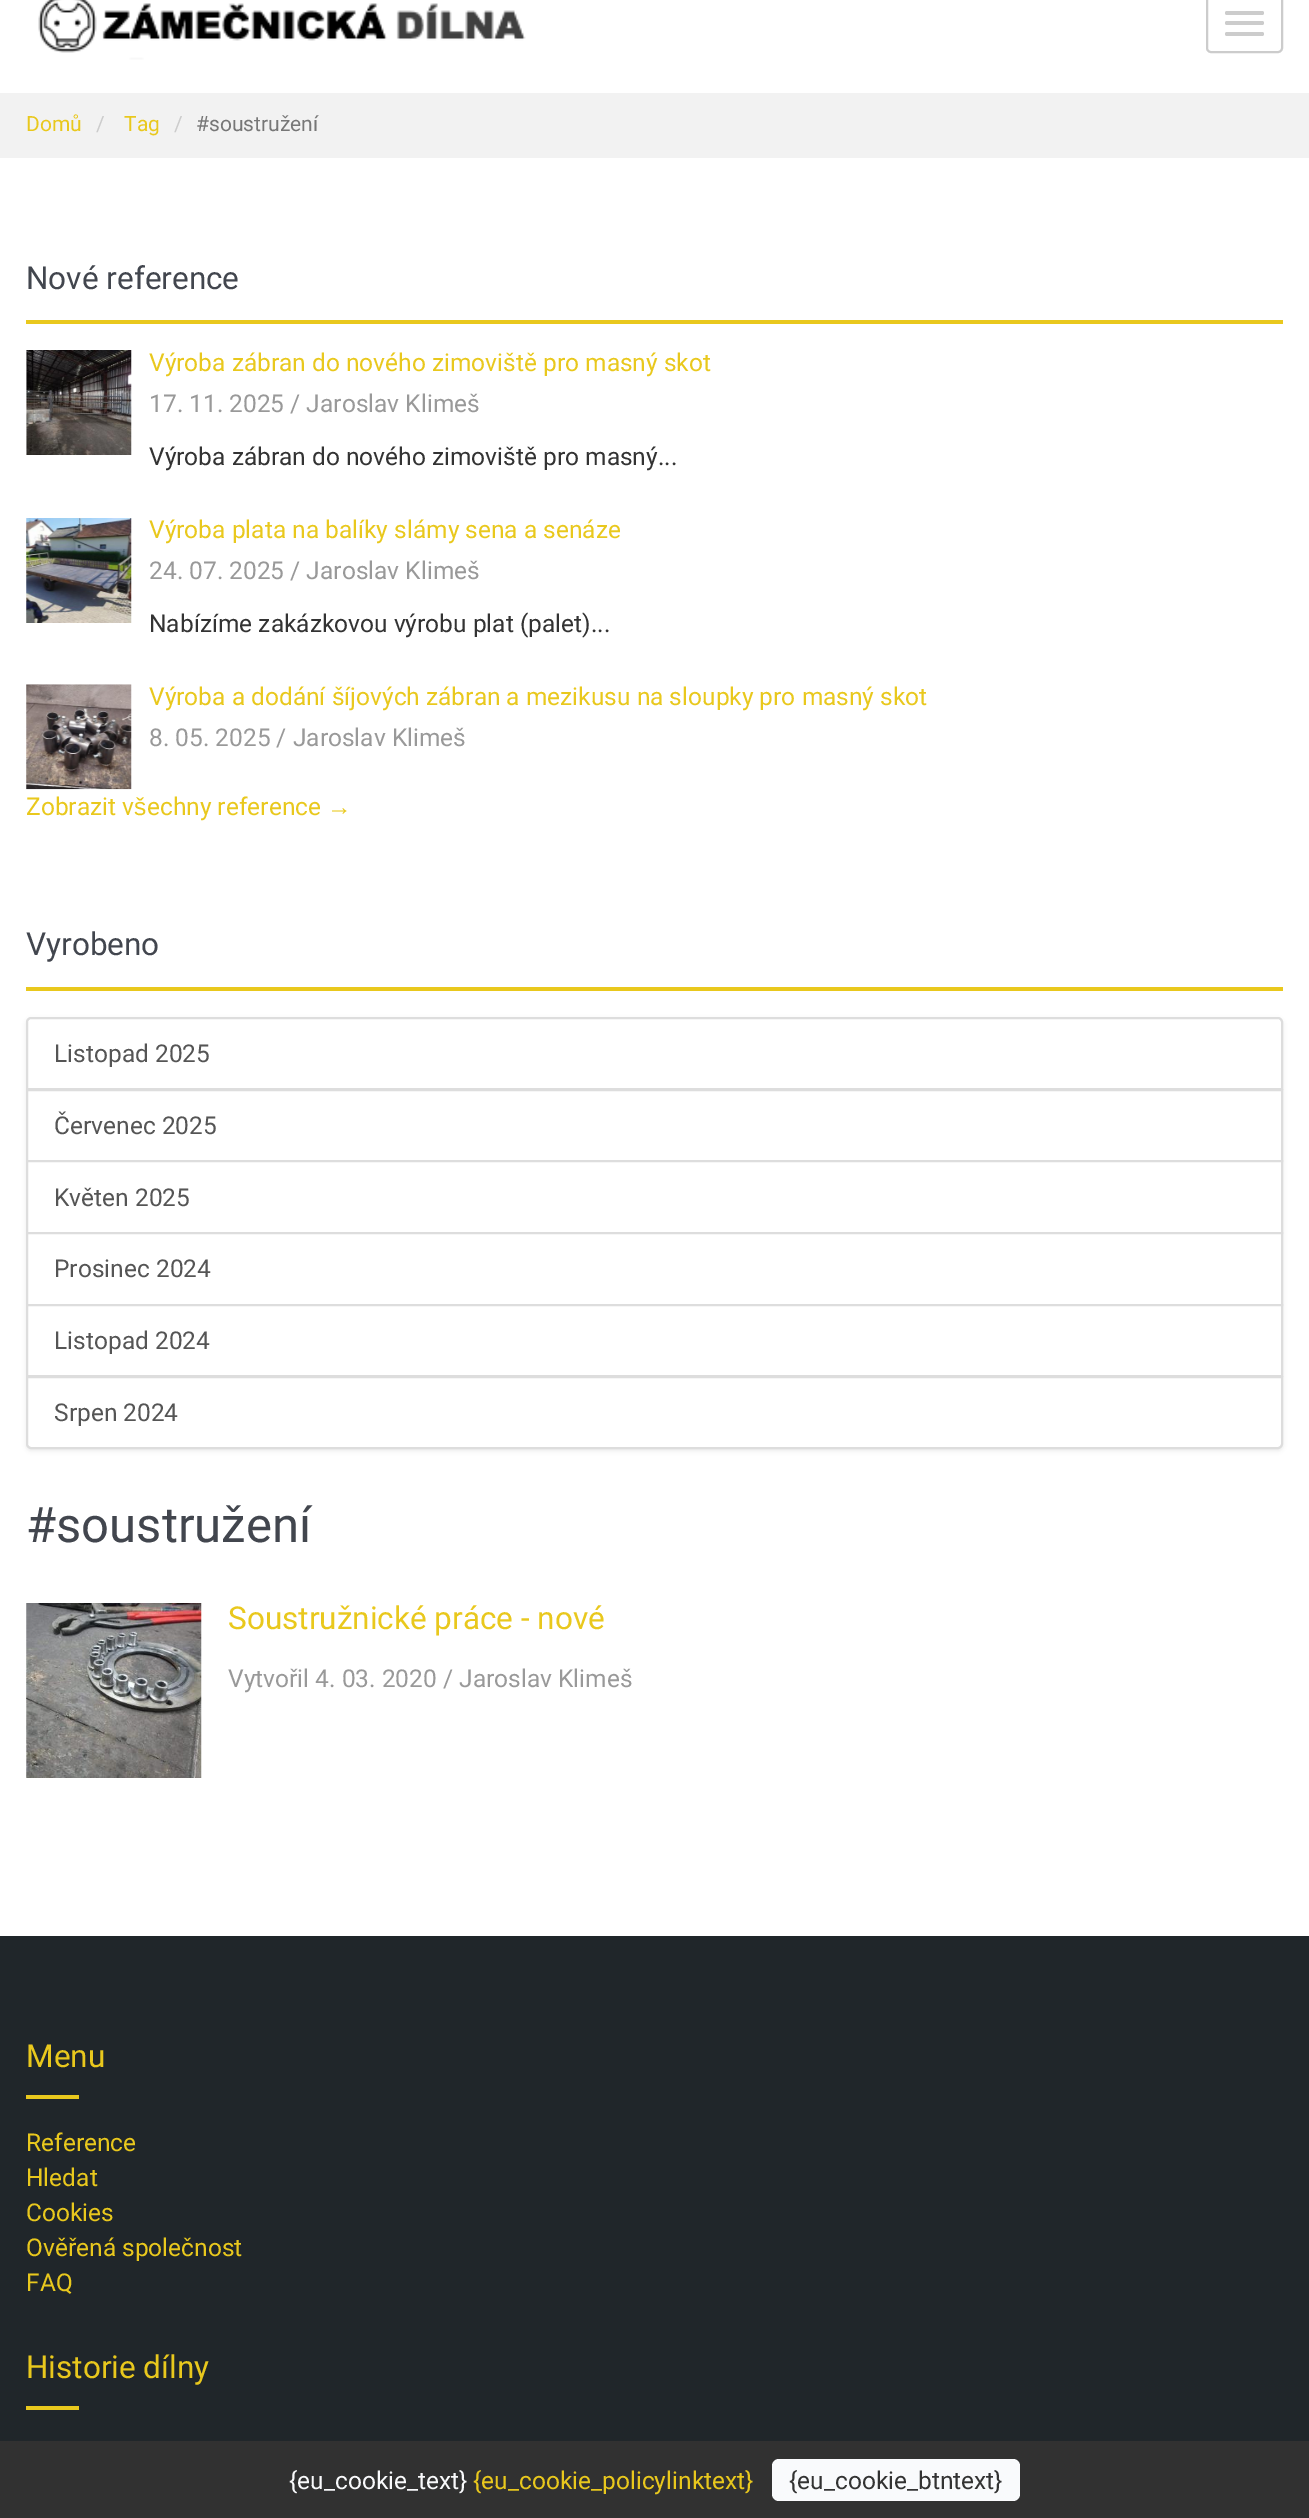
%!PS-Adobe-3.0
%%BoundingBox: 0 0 1309 2518
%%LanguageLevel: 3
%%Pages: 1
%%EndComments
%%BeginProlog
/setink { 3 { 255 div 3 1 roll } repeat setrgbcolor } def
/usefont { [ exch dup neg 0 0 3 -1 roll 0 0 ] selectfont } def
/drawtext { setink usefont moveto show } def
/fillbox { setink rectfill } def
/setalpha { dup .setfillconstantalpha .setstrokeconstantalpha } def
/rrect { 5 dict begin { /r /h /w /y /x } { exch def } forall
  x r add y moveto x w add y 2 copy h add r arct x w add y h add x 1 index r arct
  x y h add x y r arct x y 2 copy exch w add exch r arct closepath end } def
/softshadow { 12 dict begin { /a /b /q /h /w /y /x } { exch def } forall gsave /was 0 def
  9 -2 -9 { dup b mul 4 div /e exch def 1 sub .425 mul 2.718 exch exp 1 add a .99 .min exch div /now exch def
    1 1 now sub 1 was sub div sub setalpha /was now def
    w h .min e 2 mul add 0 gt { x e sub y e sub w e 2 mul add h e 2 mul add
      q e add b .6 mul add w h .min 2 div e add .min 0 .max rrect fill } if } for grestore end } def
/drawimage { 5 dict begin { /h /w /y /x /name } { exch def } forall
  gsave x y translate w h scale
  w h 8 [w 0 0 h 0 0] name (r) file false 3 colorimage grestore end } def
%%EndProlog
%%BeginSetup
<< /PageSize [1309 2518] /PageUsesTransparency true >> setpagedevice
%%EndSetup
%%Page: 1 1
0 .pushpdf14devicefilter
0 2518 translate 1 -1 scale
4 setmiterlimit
0 0 1309 2518 255 255 255 fillbox
(assets/img1.rgb) 38 0 488 60 drawimage
204 204 204 setink
2 setlinewidth
1207 -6 75 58 4 rrect stroke
1225 11 39 4 2 rrect fill
1225 21 39 4 2 rrect fill
1225 32 39 4 2 rrect fill
0 93 1309 65 242 242 242 fillbox
(Domů) 26 131 /Roboto-Regular 21 233 200 29 drawtext
(/) 96 131 /Roboto-Regular 21 204 204 204 drawtext
(Tag) 124 131 /Roboto-Regular 21 233 200 29 drawtext
(/) 174 131 /Roboto-Regular 21 204 204 204 drawtext
(#soustružení) 196 131 /Roboto-Regular 21 119 119 119 drawtext
26 320 1257 4 233 200 29 fillbox
(Nové reference) 26 289 /Roboto-Regular 31.5 66 70 78 drawtext
(assets/img2.rgb) 26 350 106 105 drawimage
(Výroba zábran do nového zimoviště pro masný skot) 149 371 /Roboto-Regular 24.5 233 200 29 drawtext
(17. 11. 2025 / Jaroslav Klimeš) 149 412 /Roboto-Regular 24.5 153 153 153 drawtext
(Výroba zábran do nového zimoviště pro masný...) 149 465 /Roboto-Regular 24.5 51 51 51 drawtext
(assets/img3.rgb) 26 518 106 105 drawimage
(Výroba plata na balíky slámy sena a senáze) 149 538 /Roboto-Regular 24.5 233 200 29 drawtext
(24. 07. 2025 / Jaroslav Klimeš) 149 579 /Roboto-Regular 24.5 153 153 153 drawtext
(Nabízíme zakázkovou výrobu plat \(palet\)...) 149 632 /Roboto-Regular 24.5 51 51 51 drawtext
(assets/img4.rgb) 26 684 106 106 drawimage
(Výroba a dodání šíjových zábran a mezikusu na sloupky pro masný skot) 149 705 /Roboto-Regular 24.5 233 200 29 drawtext
(8. 05. 2025 / Jaroslav Klimeš) 149 746 /Roboto-Regular 24.5 153 153 153 drawtext
(Zobrazit v) 26 815 /Roboto-Regular 24.5 233 200 29 drawtext
(š) 134 815 /LiberationSans-Regular 24.5 233 200 29 drawtext
(echny reference) 147 815 /Roboto-Regular 24.5 233 200 29 drawtext
(→) 327 815 /LiberationSans-Regular 24.5 233 200 29 drawtext
26 987 1257 4 233 200 29 fillbox
(Vyrobeno) 26 955 /Roboto-Regular 31.5 66 70 78 drawtext
0 0 0 setink
26 1019 1257 432 5 2 0.07 softshadow
255 255 255 setink
31 1018 moveto 1278 1018 lineto 1280 1018 1282 1020 1282 1022 curveto 1282 1089 lineto 27 1089 lineto 27 1022 lineto 27 1020 29 1018 31 1018 curveto closepath gsave fill grestore
221 221 221 setink
stroke
(Listopad 2025) 54 1062 /Roboto-Regular 24.5 85 85 85 drawtext
255 255 255 setink
27 1090 moveto 1282 1090 lineto 1282 1161 lineto 27 1161 lineto closepath gsave fill grestore
221 221 221 setink
stroke
(Červenec 2025) 54 1134 /Roboto-Regular 24.5 85 85 85 drawtext
255 255 255 setink
27 1161 moveto 1282 1161 lineto 1282 1233 lineto 27 1233 lineto closepath gsave fill grestore
221 221 221 setink
stroke
(Květen 2025) 54 1206 /Roboto-Regular 24.5 85 85 85 drawtext
255 255 255 setink
27 1233 moveto 1282 1233 lineto 1282 1305 lineto 27 1305 lineto closepath gsave fill grestore
221 221 221 setink
stroke
(Prosinec 2024) 54 1277 /Roboto-Regular 24.5 85 85 85 drawtext
255 255 255 setink
27 1305 moveto 1282 1305 lineto 1282 1376 lineto 27 1376 lineto closepath gsave fill grestore
221 221 221 setink
stroke
(Listopad 2024) 54 1349 /Roboto-Regular 24.5 85 85 85 drawtext
255 255 255 setink
27 1377 moveto 1282 1377 lineto 1282 1444 lineto 1282 1446 1280 1448 1278 1448 curveto 31 1448 lineto 29 1448 27 1446 27 1444 curveto closepath gsave fill grestore
221 221 221 setink
stroke
(Srpen 2024) 54 1421 /Roboto-Regular 24.5 85 85 85 drawtext
(#soustružení) 26 1542 /Roboto-Regular 49 66 70 78 drawtext
(assets/img5.rgb) 26 1603 176 175 drawimage
(Soustružnické práce - nové) 228 1629 /Roboto-Regular 31.5 233 200 29 drawtext
(Vytvořil 4. 03. 2020 / Jaroslav Klimeš) 228 1687 /Roboto-Regular 24.5 153 153 153 drawtext
0 1936 1309 505 32 38 42 fillbox
(Menu) 26 2067 /Roboto-Regular 31.5 233 200 29 drawtext
26 2095 53 4 233 200 29 fillbox
(Reference) 26 2151 /Roboto-Regular 24.5 233 200 29 drawtext
(Hledat) 26 2186 /Roboto-Regular 24.5 233 200 29 drawtext
(Cookies) 26 2221 /Roboto-Regular 24.5 233 200 29 drawtext
(Ověřená společnost) 26 2256 /Roboto-Regular 24.5 233 200 29 drawtext
(FAQ) 26 2291 /Roboto-Regular 24.5 233 200 29 drawtext
(Historie dílny) 26 2378 /Roboto-Regular 31.5 233 200 29 drawtext
26 2406 53 4 233 200 29 fillbox
0 2441 1309 77 49 49 49 fillbox
({eu_cookie_text}) 289 2489 /Roboto-Regular 24.5 249 250 252 drawtext
({eu_cookie_policylinktext}) 473 2489 /Roboto-Regular 24.5 233 200 29 drawtext
249 250 252 setink
772 2459 248 42 7 rrect fill
({eu_cookie_btntext}) 789 2489 /Roboto-Regular 24.5 51 51 51 drawtext
.poppdf14devicefilter showpage
%%EOF
